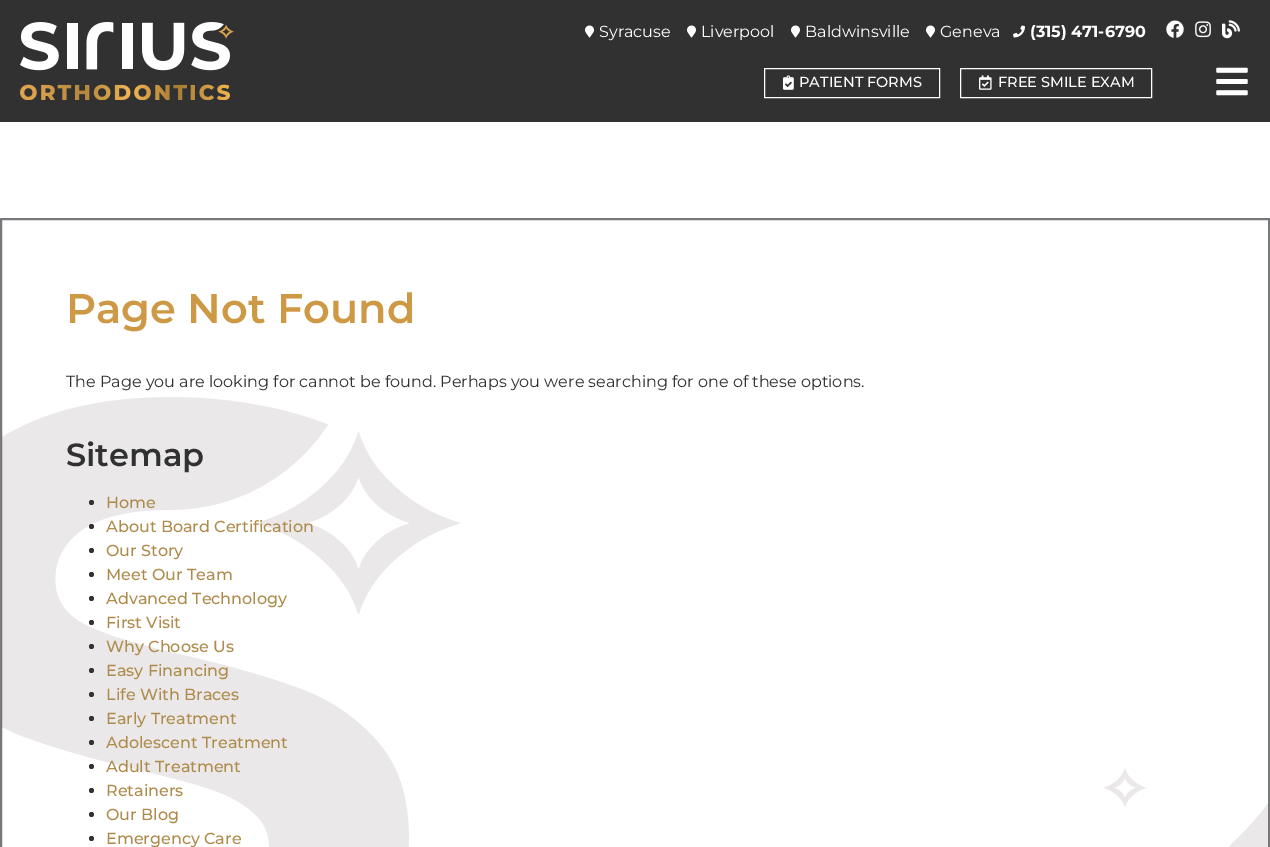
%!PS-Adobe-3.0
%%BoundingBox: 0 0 1270 847
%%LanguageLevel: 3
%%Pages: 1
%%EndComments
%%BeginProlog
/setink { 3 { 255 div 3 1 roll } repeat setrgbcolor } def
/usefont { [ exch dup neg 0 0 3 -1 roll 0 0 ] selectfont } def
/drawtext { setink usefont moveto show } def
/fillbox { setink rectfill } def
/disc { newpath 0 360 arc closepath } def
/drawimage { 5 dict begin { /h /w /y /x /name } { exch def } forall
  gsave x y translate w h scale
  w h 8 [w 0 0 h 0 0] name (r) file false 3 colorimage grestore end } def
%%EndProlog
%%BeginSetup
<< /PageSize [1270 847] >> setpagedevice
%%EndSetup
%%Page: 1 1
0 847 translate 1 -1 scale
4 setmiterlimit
0 0 1270 847 255 255 255 fillbox
0 0 1270 122 49 49 49 fillbox
(assets/img1.rgb) 20 22 214 78 drawimage
(assets/img2.rgb) 585 25 9 13 drawimage
(Syracuse) 599 37 /Montserrat-Regular 16 255 255 255 drawtext
(assets/img2.rgb) 687 25 9 13 drawimage
(Liverpool) 701 37 /Montserrat-Regular 16 255 255 255 drawtext
(assets/img2.rgb) 791 25 9 13 drawimage
(Baldwinsville) 805 37 /Montserrat-Regular 16 255 255 255 drawtext
(assets/img2.rgb) 926 25 9 13 drawimage
(Geneva) 940 37 /Montserrat-Regular 16 255 255 255 drawtext
(assets/img3.rgb) 1013 25 12 13 drawimage
(\(315\) 471-6790) 1030 37 /Montserrat-Bold 16 255 255 255 drawtext
(assets/img4.rgb) 1166 20 18 18 drawimage
(assets/img5.rgb) 1195 21 16 17 drawimage
(assets/img6.rgb) 1222 20 18 19 drawimage
764.5 68.5 175 29 rectstroke
(assets/img7.rgb) 783 75 11 15 drawimage
(PATIENT FORMS) 799 87 /Montserrat-Medium 14.5 255 255 255 drawtext
960.5 68.5 191 29 rectstroke
(assets/img8.rgb) 979 75 13 15 drawimage
(FREE SMILE EXAM) 998 87 /Montserrat-Medium 14.5 255 255 255 drawtext
(assets/img9.rgb) 1216 67 32 29 drawimage
(assets/img10.rgb) 1103 768 165 79 drawimage
(assets/img11.rgb) 2 397 459 450 drawimage
119 120 123 setink
2 setlinewidth
1 219 1268 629 rectstroke
(Page Not Found) 66 323 /Montserrat-SemiBold 41.5 206 153 69 drawtext
(The Page you are looking for cannot be found. Perhaps you were searching for one of these options.) 66 387 /Montserrat-Regular 16 49 49 49 drawtext
(Sitemap) 66 466 /Montserrat-SemiBold 32 49 49 49 drawtext
91.5 502.5 2.5 disc fill
(Home) 106 508 /Montserrat-Medium 16 175 139 75 drawtext
49 49 49 setink
91.5 526.5 2.5 disc fill
(About Board Certification) 106 532 /Montserrat-Medium 16 175 139 75 drawtext
49 49 49 setink
91.5 550.5 2.5 disc fill
(Our Story) 106 556 /Montserrat-Medium 16 175 139 75 drawtext
49 49 49 setink
91.5 574.5 2.5 disc fill
(Meet Our Team) 106 580 /Montserrat-Medium 16 175 139 75 drawtext
49 49 49 setink
91.5 598.5 2.5 disc fill
(Advanced Technology) 106 604 /Montserrat-Medium 16 175 139 75 drawtext
49 49 49 setink
91.5 622.5 2.5 disc fill
(First Visit) 106 628 /Montserrat-Medium 16 175 139 75 drawtext
49 49 49 setink
91.5 646.5 2.5 disc fill
(Why Choose Us) 106 652 /Montserrat-Medium 16 175 139 75 drawtext
49 49 49 setink
91.5 670.5 2.5 disc fill
(Easy Financing) 106 676 /Montserrat-Medium 16 175 139 75 drawtext
49 49 49 setink
91.5 694.5 2.5 disc fill
(Life With Braces) 106 700 /Montserrat-Medium 16 175 139 75 drawtext
49 49 49 setink
91.5 718.5 2.5 disc fill
(Early Treatment) 106 724 /Montserrat-Medium 16 175 139 75 drawtext
49 49 49 setink
91.5 742.5 2.5 disc fill
(Adolescent Treatment) 106 748 /Montserrat-Medium 16 175 139 75 drawtext
49 49 49 setink
91.5 766.5 2.5 disc fill
(Adult Treatment) 106 772 /Montserrat-Medium 16 175 139 75 drawtext
49 49 49 setink
91.5 790.5 2.5 disc fill
(Retainers) 106 796 /Montserrat-Medium 16 175 139 75 drawtext
49 49 49 setink
91.5 814.5 2.5 disc fill
(Our Blog) 106 820 /Montserrat-Medium 16 175 139 75 drawtext
49 49 49 setink
91.5 838.5 2.5 disc fill
(Emergency Care) 106 844 /Montserrat-Medium 16 175 139 75 drawtext
showpage
%%EOF
